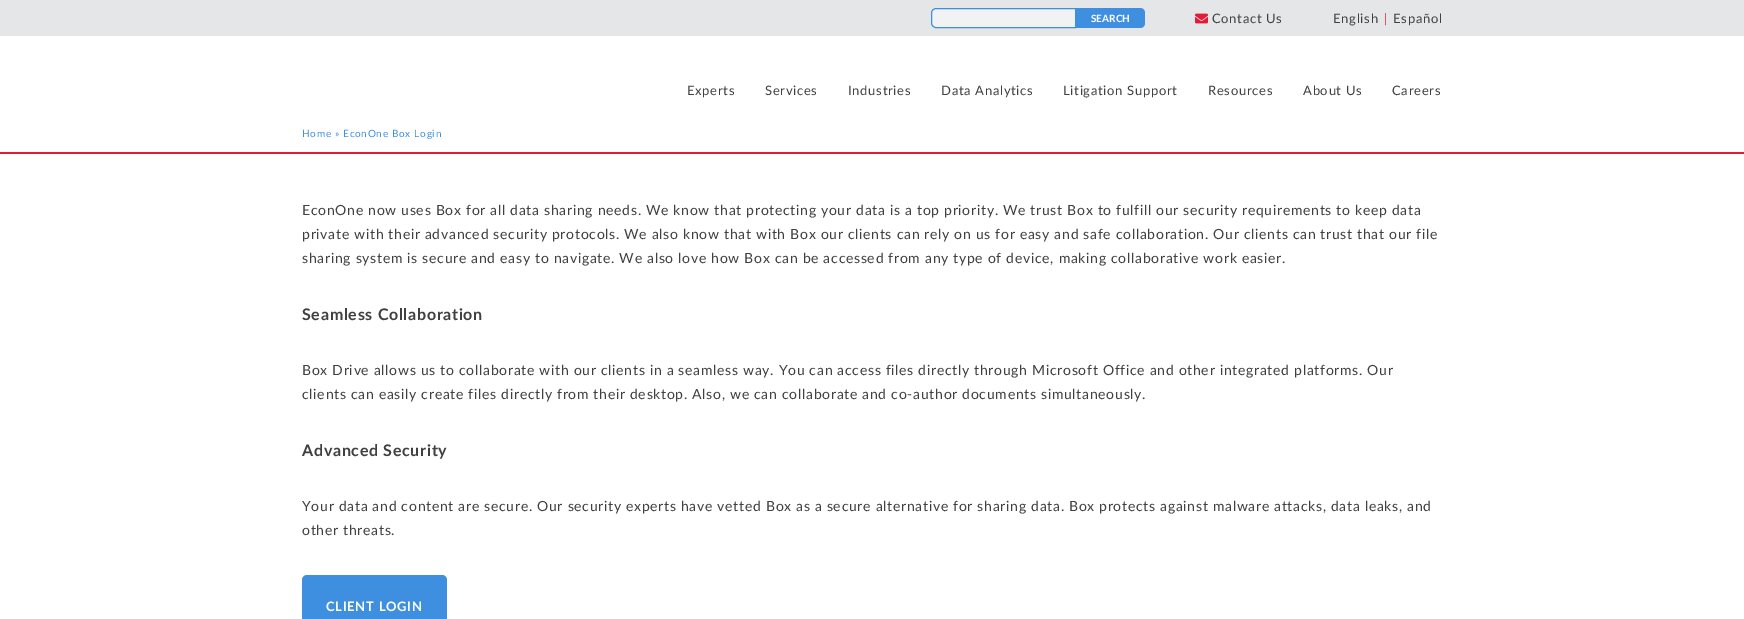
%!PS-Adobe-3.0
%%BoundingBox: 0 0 1744 619
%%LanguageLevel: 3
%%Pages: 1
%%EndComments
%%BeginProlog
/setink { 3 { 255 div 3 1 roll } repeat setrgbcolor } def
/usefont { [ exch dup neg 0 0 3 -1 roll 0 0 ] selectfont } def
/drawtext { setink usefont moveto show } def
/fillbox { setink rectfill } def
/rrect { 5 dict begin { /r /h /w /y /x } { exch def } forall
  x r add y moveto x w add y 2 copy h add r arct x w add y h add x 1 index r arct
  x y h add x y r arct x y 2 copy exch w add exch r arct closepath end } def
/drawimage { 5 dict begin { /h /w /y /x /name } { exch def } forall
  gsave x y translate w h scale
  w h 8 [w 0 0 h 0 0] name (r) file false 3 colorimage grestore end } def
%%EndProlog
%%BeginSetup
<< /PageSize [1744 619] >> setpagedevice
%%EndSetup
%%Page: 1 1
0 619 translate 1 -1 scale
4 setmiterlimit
0 0 1744 619 255 255 255 fillbox
0 0 1744 36 229 230 231 fillbox
241 242 243 setink
931 8 214 20 5 rrect fill
62 143 224 setink
936 8.5 moveto 1075.5 8.5 lineto 1075.5 27.5 lineto 936 27.5 lineto 933.5 27.5 931.5 25.5 931.5 23 curveto 931.5 13 lineto 931.5 10.5 933.5 8.5 936 8.5 curveto closepath stroke
1076 8 moveto 1140 8 lineto 1143 8 1145 10 1145 13 curveto 1145 23 lineto 1145 26 1143 28 1140 28 curveto 1076 28 lineto closepath fill
(SEARCH) 1091 22 /Lato-Bold 10 255 255 255 drawtext
(assets/img1.rgb) 1195 13 13 11 drawimage
/Lato-Regular 13 usefont
64 64 64 setink
1212 23 moveto 0.7 0 (Contact Us) ashow
1333 23 moveto 0.7 0 (English) ashow
228 26 55 setink
1384 23 moveto 0.7 0 (|) ashow
64 64 64 setink
1393 23 moveto 0.7 0 (Español) ashow
0 152 1744 2 228 26 55 fillbox
64 64 64 setink
687 95 moveto 0.7 0 (Experts) ashow
765 95 moveto 0.7 0 (Services) ashow
848 95 moveto 0.7 0 (Industries) ashow
941 95 moveto 0.7 0 (Data Analytics) ashow
1063 95 moveto 0.7 0 (Litigation Support) ashow
1208 95 moveto 0.7 0 (Resources) ashow
1303 95 moveto 0.7 0 (About Us) ashow
1392 95 moveto 0.7 0 (Careers) ashow
/Lato-Regular 10 usefont
62 143 224 setink
302 137 moveto 0.7 0 (Home » EconOne Box Login) ashow
/Lato-Regular 14 usefont
64 64 64 setink
302 215 moveto 0.7 0 (EconOne now uses Box for all data sharing needs. We know that protecting your data is a top priority. We trust Box to fulfill our security requirements to keep data) ashow
302 239 moveto 0.7 0 (private with their advanced security protocols. We also know that with Box our clients can rely on us for easy and safe collaboration. Our clients can trust that our file) ashow
302 263 moveto 0.7 0 (sharing system is secure and easy to navigate. We also love how Box can be accessed from any type of device, making collaborative work easier.) ashow
/Lato-Bold 16 usefont
302 320 moveto 0.7 0 (Seamless Collaboration) ashow
/Lato-Regular 14 usefont
302 375 moveto 0.7 0 (Box Drive allows us to collaborate with our clients in a seamless way. You can access files directly through Microsoft Office and other integrated platforms. Our) ashow
302 399 moveto 0.7 0 (clients can easily create files directly from their desktop. Also, we can collaborate and co-author documents simultaneously.) ashow
/Lato-Bold 16 usefont
302 456 moveto 0.7 0 (Advanced Security) ashow
/Lato-Regular 14 usefont
302 511 moveto 0.7 0 (Your data and content are secure. Our security experts have vetted Box as a secure alternative for sharing data. Box protects against malware attacks, data leaks, and) ashow
302 535 moveto 0.7 0 (other threats.) ashow
62 143 224 setink
302 575 145 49 5 rrect fill
/Lato-Bold 13 usefont
255 255 255 setink
326 611 moveto 0.7 0 (CLIENT LOGIN) ashow
showpage
%%EOF
